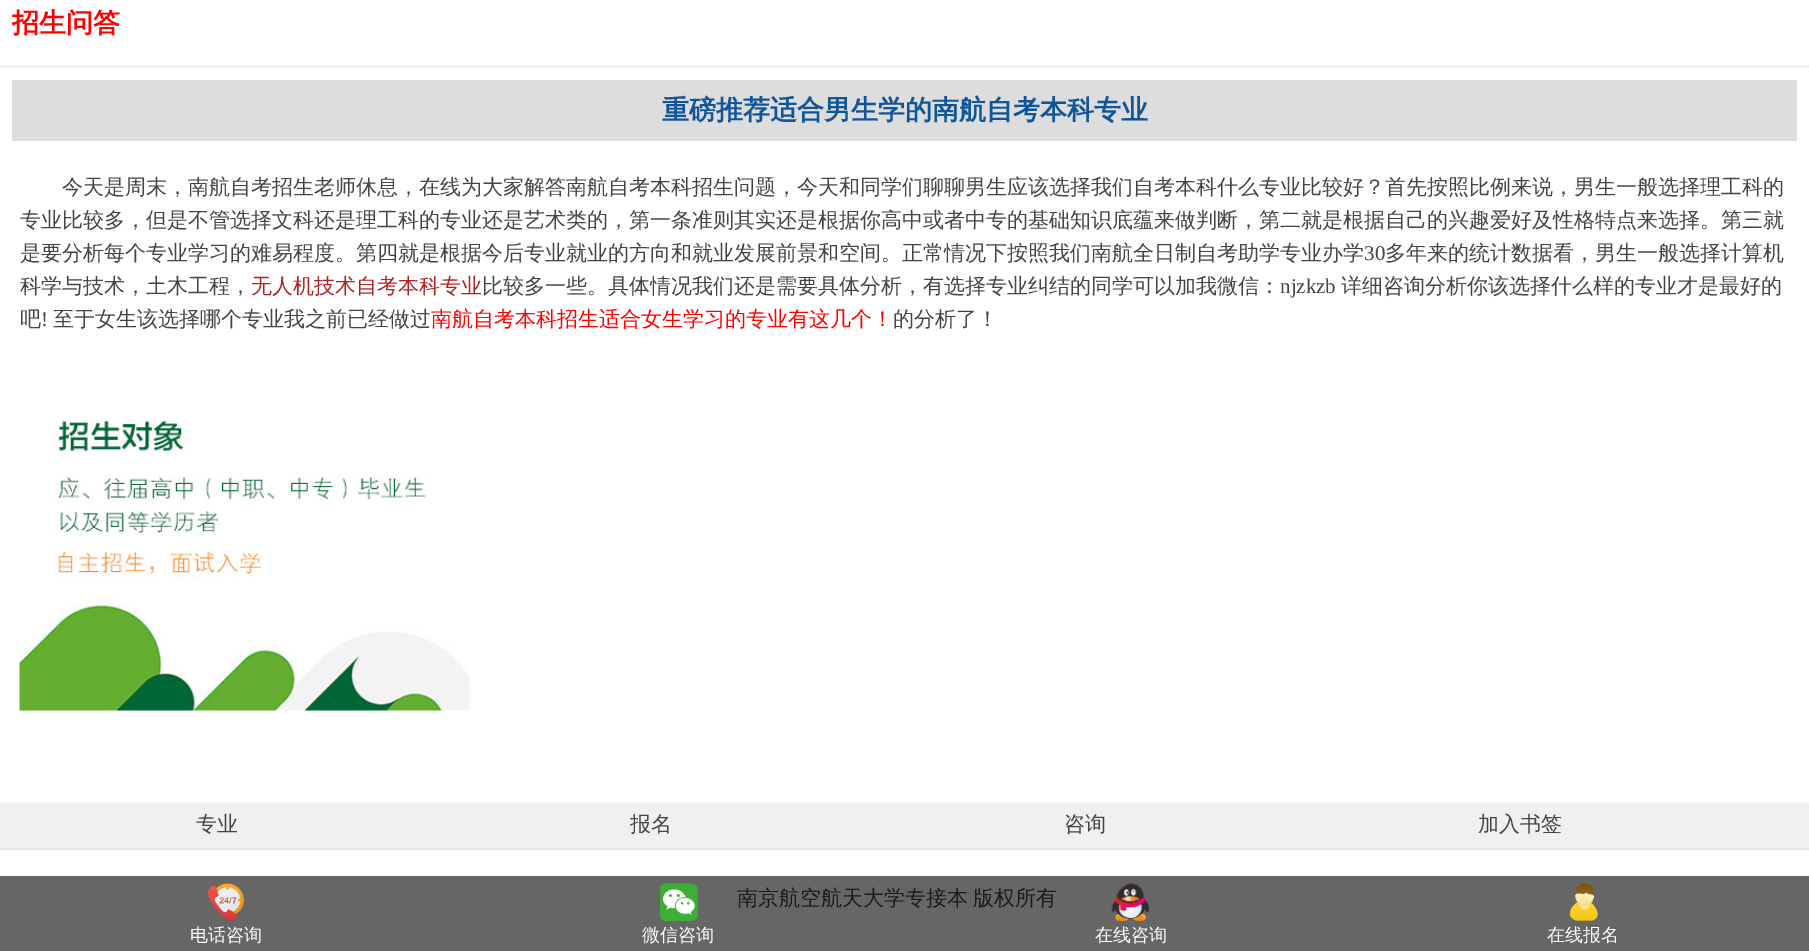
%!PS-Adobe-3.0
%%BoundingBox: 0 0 1809 951
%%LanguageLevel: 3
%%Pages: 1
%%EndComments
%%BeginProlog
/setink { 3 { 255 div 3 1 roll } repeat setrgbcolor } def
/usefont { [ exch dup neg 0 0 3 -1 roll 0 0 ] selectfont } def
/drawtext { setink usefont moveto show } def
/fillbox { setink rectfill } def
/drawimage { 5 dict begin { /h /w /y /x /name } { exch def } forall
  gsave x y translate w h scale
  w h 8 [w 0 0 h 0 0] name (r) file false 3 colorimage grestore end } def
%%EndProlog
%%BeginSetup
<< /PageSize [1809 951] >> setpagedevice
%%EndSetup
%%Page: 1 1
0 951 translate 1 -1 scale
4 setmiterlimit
0 0 1809 951 255 255 255 fillbox
0 876 1809 75 102 102 102 fillbox
0 65 1809 3 241 241 241 fillbox
(招生问答) 12 32 /WenQuanYiZenHei-Bold 27 255 0 0 drawtext
12 80 1785 61 221 221 221 fillbox
(重磅推荐适合男生学的南航自考本科专业) 662 119 /WenQuanYiZenHei-Bold 27 17 85 153 drawtext
(今天是周末，南航自考招生老师休息，在线为大家解答南航自考本科招生问题，今天和同学们聊聊男生应该选择我们自考本科什么专业比较好？首先按照比例来说，男生一般选择理工科的) 62 194 /WenQuanYiZenHei-Medium 21 68 68 68 drawtext
(专业比较多，但是不管选择文科还是理工科的专业还是艺术类的，第一条准则其实还是根据你高中或者中专的基础知识底蕴来做判断，第二就是根据自己的兴趣爱好及性格特点来选择。第三就) 20 227 /WenQuanYiZenHei-Medium 21 68 68 68 drawtext
(是要分析每个专业学习的难易程度。第四就是根据今后专业就业的方向和就业发展前景和空间。正常情况下按照我们南航全日制自考助学专业办学) 20 260 /WenQuanYiZenHei-Medium 21 68 68 68 drawtext
(30) 1364 260 /LiberationSerif-Regular 21 68 68 68 drawtext
(多年来的统计数据看，男生一般选择计算机) 1385 260 /WenQuanYiZenHei-Medium 21 68 68 68 drawtext
(科学与技术，土木工程，) 20 293 /WenQuanYiZenHei-Medium 21 68 68 68 drawtext
(无人机技术自考本科专业) 251 293 /WenQuanYiZenHei-Medium 21 178 34 34 drawtext
(比较多一些。具体情况我们还是需要具体分析，有选择专业纠结的同学可以加我微信：) 482 293 /WenQuanYiZenHei-Medium 21 68 68 68 drawtext
(njzkzb) 1280 293 /LiberationSerif-Regular 21 68 68 68 drawtext
(详细咨询分析你该选择什么样的专业才是最好的) 1341 293 /WenQuanYiZenHei-Medium 21 68 68 68 drawtext
(吧) 20 326 /WenQuanYiZenHei-Medium 21 68 68 68 drawtext
(!) 41 326 /LiberationSerif-Regular 21 68 68 68 drawtext
(至于女生该选择哪个专业我之前已经做过) 53 326 /WenQuanYiZenHei-Medium 21 68 68 68 drawtext
(南航自考本科招生适合女生学习的专业有这几个！) 431 326 /WenQuanYiZenHei-Medium 21 255 0 0 drawtext
(的分析了！) 893 326 /WenQuanYiZenHei-Medium 21 68 68 68 drawtext
(assets/img1.rgb) 19 419 451 292 drawimage
0 803 1809 45 240 240 240 fillbox
0 801 1809 2 249 249 249 fillbox
0 848 1809 2 226 227 227 fillbox
(专业) 196 831 /WenQuanYiZenHei-Medium 21 68 68 68 drawtext
(报名) 630 831 /WenQuanYiZenHei-Medium 21 68 68 68 drawtext
(咨询) 1064 831 /WenQuanYiZenHei-Medium 21 68 68 68 drawtext
(加入书签) 1478 831 /WenQuanYiZenHei-Medium 21 68 68 68 drawtext
27 27 27 setink
737 905 moveto -1 0 32 (南京航空航天大学专接本 版权所有) widthshow
(assets/img2.rgb) 207 883 37 38 drawimage
(电话咨询) 190 941 /WenQuanYiZenHei-Medium 18 255 255 255 drawtext
(assets/img3.rgb) 660 883 38 38 drawimage
(微信咨询) 642 941 /WenQuanYiZenHei-Medium 18 255 255 255 drawtext
(assets/img4.rgb) 1111 883 38 38 drawimage
(在线咨询) 1095 941 /WenQuanYiZenHei-Medium 18 255 255 255 drawtext
(assets/img5.rgb) 1570 883 28 38 drawimage
(在线报名) 1547 941 /WenQuanYiZenHei-Medium 18 255 255 255 drawtext
showpage
%%EOF
